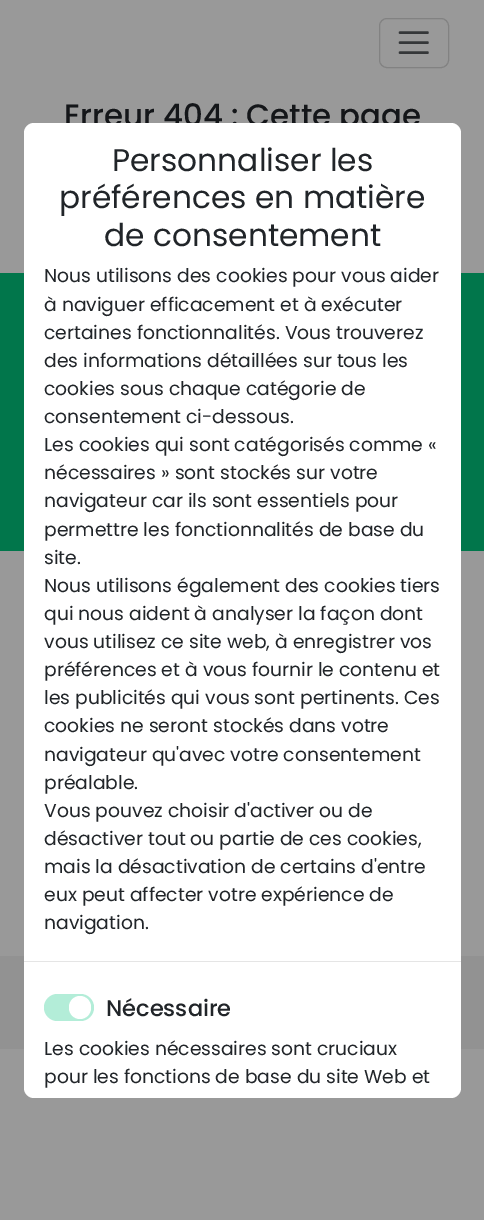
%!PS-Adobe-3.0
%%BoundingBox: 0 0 484 1220
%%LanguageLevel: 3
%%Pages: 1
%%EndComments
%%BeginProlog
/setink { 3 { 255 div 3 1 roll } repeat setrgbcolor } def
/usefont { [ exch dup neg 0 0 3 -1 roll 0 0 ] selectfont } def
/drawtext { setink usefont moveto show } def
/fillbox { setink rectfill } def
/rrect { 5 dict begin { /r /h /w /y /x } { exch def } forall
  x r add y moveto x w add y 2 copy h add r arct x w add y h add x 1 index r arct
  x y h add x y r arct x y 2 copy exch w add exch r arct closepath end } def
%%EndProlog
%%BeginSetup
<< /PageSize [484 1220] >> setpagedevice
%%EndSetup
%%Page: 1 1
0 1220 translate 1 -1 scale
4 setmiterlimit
0 0 484 1220 153 153 153 fillbox
130 130 130 setink
379.5 18.5 69 49 7.5 rrect stroke
53 55 57 setink
2.5 setlinewidth
1 setlinecap
400 32.5 moveto 427.5 32.5 lineto 400 42.5 moveto 427.5 42.5 lineto 400 52.5 moveto 427.5 52.5 lineto stroke
(Erreur 404 : Cette page) 64 126 /Poppins-Medium 30.9 20 22 25 drawtext
0 273 484 278 1 118 75 fillbox
0 956 484 93 146 146 146 fillbox
255 255 255 setink
24 123 437 975 10 rrect fill
24 961 437 1 229 229 229 fillbox
(Personnaliser les) 112 171 /Poppins-Regular 31.25 33 37 41 drawtext
(préférences en matière) 59 208 /Poppins-Regular 31.25 33 37 41 drawtext
(de consentement) 104 246 /Poppins-Regular 31.25 33 37 41 drawtext
(Nous utilisons des cookies pour vous aider) 44 282 /Poppins-Regular 18.75 33 37 41 drawtext
(à naviguer efficacement et à exécuter) 44 311 /Poppins-Regular 18.75 33 37 41 drawtext
(certaines fonctionnalités. Vous trouverez) 44 339 /Poppins-Regular 18.75 33 37 41 drawtext
(des informations détaillées sur tous les) 44 367 /Poppins-Regular 18.75 33 37 41 drawtext
(cookies sous chaque catégorie de) 44 395 /Poppins-Regular 18.75 33 37 41 drawtext
(consentement ci-dessous.) 44 423 /Poppins-Regular 18.75 33 37 41 drawtext
(Les cookies qui sont catégorisés comme «) 44 451 /Poppins-Regular 18.75 33 37 41 drawtext
(nécessaires » sont stockés sur votre) 44 479 /Poppins-Regular 18.75 33 37 41 drawtext
(navigateur car ils sont essentiels pour) 44 507 /Poppins-Regular 18.75 33 37 41 drawtext
(permettre les fonctionnalités de base du) 44 536 /Poppins-Regular 18.75 33 37 41 drawtext
(site.) 44 564 /Poppins-Regular 18.75 33 37 41 drawtext
(Nous utilisons également des cookies tiers) 44 592 /Poppins-Regular 18.75 33 37 41 drawtext
(qui nous aident à analyser la façon dont) 44 620 /Poppins-Regular 18.75 33 37 41 drawtext
(vous utilisez ce site web, à enregistrer vos) 44 648 /Poppins-Regular 18.75 33 37 41 drawtext
(préférences et à vous fournir le contenu et) 44 676 /Poppins-Regular 18.75 33 37 41 drawtext
(les publicités qui vous sont pertinents. Ces) 44 704 /Poppins-Regular 18.75 33 37 41 drawtext
(cookies ne seront stockés dans votre) 44 732 /Poppins-Regular 18.75 33 37 41 drawtext
(navigateur qu'avec votre consentement) 44 761 /Poppins-Regular 18.75 33 37 41 drawtext
(préalable.) 44 789 /Poppins-Regular 18.75 33 37 41 drawtext
(Vous pouvez choisir d'activer ou de) 44 817 /Poppins-Regular 18.75 33 37 41 drawtext
(désactiver tout ou partie de ces cookies,) 44 845 /Poppins-Regular 18.75 33 37 41 drawtext
(mais la désactivation de certains d'entre) 44 873 /Poppins-Regular 18.75 33 37 41 drawtext
(eux peut affecter votre expérience de) 44 901 /Poppins-Regular 18.75 33 37 41 drawtext
(navigation.) 44 929 /Poppins-Regular 18.75 33 37 41 drawtext
179 237 216 setink
44 994 50 27 13.5 rrect fill
255 255 255 setink
69 996 22 23 11 rrect fill
(Nécessaire) 106 1016 /Poppins-Medium 22.5 33 37 41 drawtext
(Les cookies nécessaires sont cruciaux) 44 1055 /Poppins-Regular 18.75 33 37 41 drawtext
(pour les fonctions de base du site Web et) 44 1083 /Poppins-Regular 18.75 33 37 41 drawtext
showpage
%%EOF
